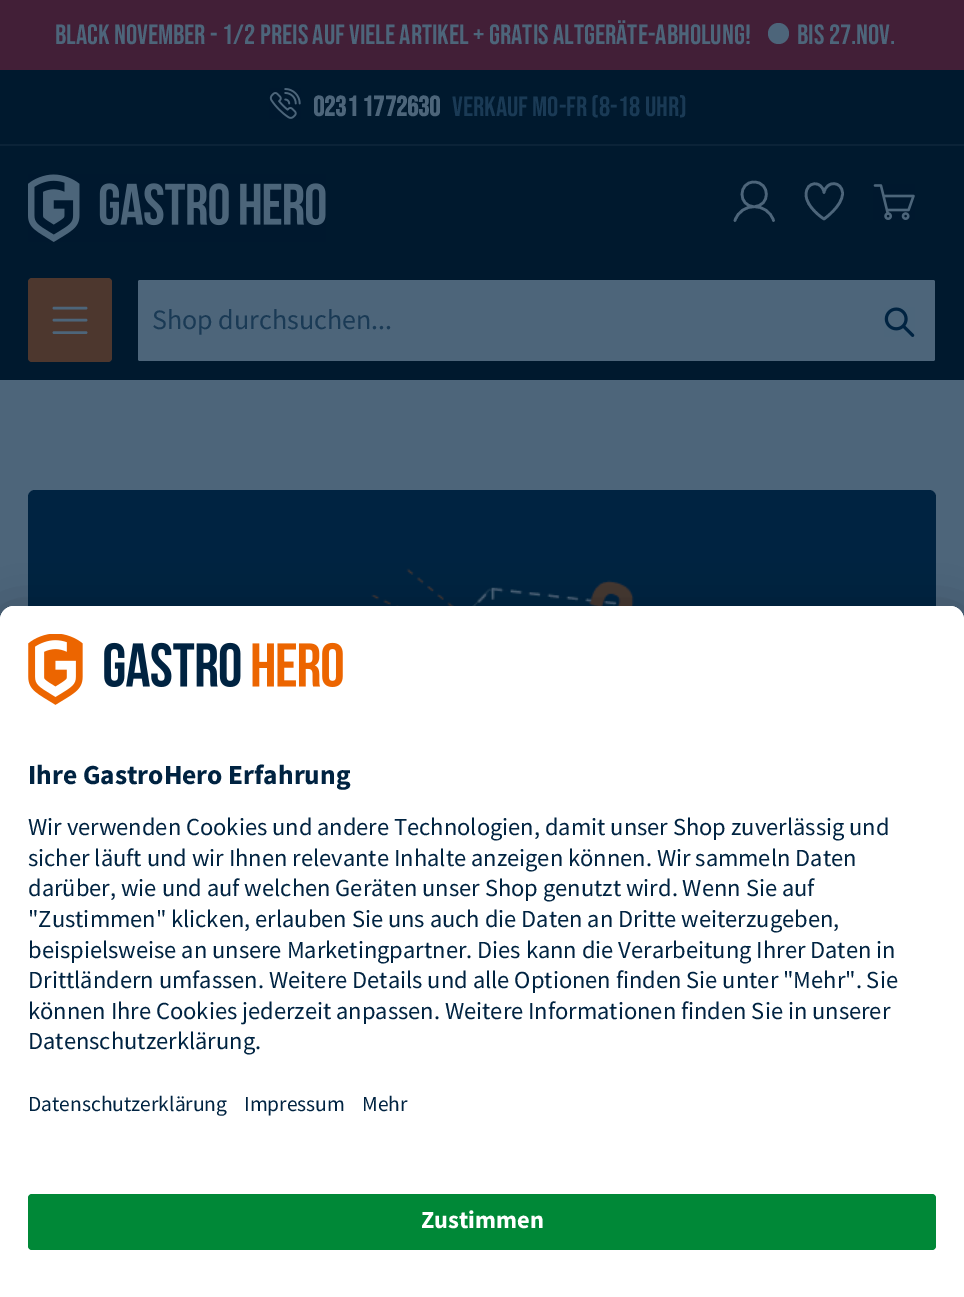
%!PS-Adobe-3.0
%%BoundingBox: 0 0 964 1297
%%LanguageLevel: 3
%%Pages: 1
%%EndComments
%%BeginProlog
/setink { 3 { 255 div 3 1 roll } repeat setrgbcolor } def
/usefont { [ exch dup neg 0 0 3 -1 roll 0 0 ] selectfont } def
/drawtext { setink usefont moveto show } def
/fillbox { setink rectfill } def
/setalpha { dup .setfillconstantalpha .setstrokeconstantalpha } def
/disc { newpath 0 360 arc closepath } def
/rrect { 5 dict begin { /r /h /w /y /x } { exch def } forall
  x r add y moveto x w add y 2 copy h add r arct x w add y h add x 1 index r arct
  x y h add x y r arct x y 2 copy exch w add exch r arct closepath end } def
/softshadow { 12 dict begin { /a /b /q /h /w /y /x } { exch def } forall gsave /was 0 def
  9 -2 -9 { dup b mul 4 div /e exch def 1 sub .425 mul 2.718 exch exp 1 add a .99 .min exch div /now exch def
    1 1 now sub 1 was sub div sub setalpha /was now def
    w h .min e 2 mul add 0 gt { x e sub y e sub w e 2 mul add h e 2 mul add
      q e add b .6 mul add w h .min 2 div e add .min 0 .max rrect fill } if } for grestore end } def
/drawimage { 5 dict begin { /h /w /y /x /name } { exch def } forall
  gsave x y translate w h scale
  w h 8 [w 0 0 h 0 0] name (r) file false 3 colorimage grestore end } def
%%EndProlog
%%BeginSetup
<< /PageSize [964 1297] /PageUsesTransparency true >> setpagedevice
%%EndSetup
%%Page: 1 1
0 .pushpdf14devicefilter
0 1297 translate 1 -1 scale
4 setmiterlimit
0 0 964 1297 77 101 122 fillbox
0 70 964 310 0 25 46 fillbox
0 0 964 70 66 31 55 fillbox
(BLACK NOVEMBER - 1/2 PREIS AUF VIELE ARTIKEL + GRATIS ALTGERÄTE-ABHOLUNG!) 55 44 /BebasNeue-Regular 28 77 101 122 drawtext
778.5 33.5 10.5 disc fill
(BIS 27.NOV.) 797 44 /BebasNeue-Regular 28 77 101 122 drawtext
0 144 964 2 11 35 56 fillbox
(assets/img1.rgb) 269 88 32 31 drawimage
(0231 1772630) 313 116 /BebasNeue-Bold 28 77 101 122 drawtext
(verkauf mo-fr \(8-18 uhr\)) 452 116 /BebasNeue-Regular 28 26 58 85 drawtext
(assets/img2.rgb) 28 174 298 68 drawimage
77 101 122 setink
2.6 setlinewidth
1 setlinecap
1 setlinejoin
754 206.5 moveto 770.5 206.5 770.5 182 754 182 curveto 738 182 738 206.5 754 206.5 curveto closepath 773.5 220.5 moveto 767.5 202 741 202 735 220.5 curveto stroke
0 setlinecap
824 219 moveto 824 219 842.5 206 842.5 193.5 curveto 842.5 181 826.5 180 824 192.5 curveto 822 180 806 181 806 194.5 curveto 806 207.5 824 219 824 219 curveto closepath stroke
(assets/img3.rgb) 873 184 42 36 drawimage
77 55 46 setink
28 278 84 84 4 rrect fill
77 101 122 setink
1 setlinecap
0 setlinejoin
54 308 moveto 86 308 lineto 54 320 moveto 86 320 lineto 54 332.5 moveto 86 332.5 lineto stroke
138 280 797 81 2 rrect fill
(Shop durchsuchen...) 152 329 /SourceSansPro-Regular 28 26 58 85 drawtext
(assets/img4.rgb) 884 307 31 30 drawimage
0 35 65 setink
28 490 908 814 7 rrect fill
(assets/img5.rgb) 371 568 263 38 drawimage
0 0 0 setink
0 641 964 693 14 24.5 0.3 softshadow
0 614 964 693 14 23 0.22 softshadow
255 255 255 setink
14 606 moveto 950 606 lineto 957.5 606 964 612.5 964 620 curveto 964 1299 lineto 0 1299 lineto 0 620 lineto 0 612.5 6.5 606 14 606 curveto closepath fill
14 606 moveto 950 606 lineto 957.5 606 964 612.5 964 620 curveto 964 1173 lineto 0 1173 lineto 0 620 lineto 0 612.5 6.5 606 14 606 curveto closepath fill
(assets/img6.rgb) 28 634 315 71 drawimage
(Ihre GastroHero Erfahrung) 28 784 /SourceSansPro-Bold 27.5 0 35 65 drawtext
(Wir verwenden Cookies und andere Technologien, damit unser Shop zuverlässig und) 28 835 /SourceSansPro-Regular 24.5 0 35 65 drawtext
(sicher läuft und wir Ihnen relevante Inhalte anzeigen können. Wir sammeln Daten) 28 866 /SourceSansPro-Regular 24.5 0 35 65 drawtext
(darüber, wie und auf welchen Geräten unser Shop genutzt wird. Wenn Sie auf) 28 896 /SourceSansPro-Regular 24.5 0 35 65 drawtext
("Zustimmen" klicken, erlauben Sie uns auch die Daten an Dritte weiterzugeben,) 28 927 /SourceSansPro-Regular 24.5 0 35 65 drawtext
(beispielsweise an unsere Marketingpartner. Dies kann die Verarbeitung Ihrer Daten in) 28 958 /SourceSansPro-Regular 24.5 0 35 65 drawtext
(Drittländern umfassen. Weitere Details und alle Optionen finden Sie unter "Mehr". Sie) 28 988 /SourceSansPro-Regular 24.5 0 35 65 drawtext
(können Ihre Cookies jederzeit anpassen. Weitere Informationen finden Sie in unserer) 28 1019 /SourceSansPro-Regular 24.5 0 35 65 drawtext
(Datenschutzerklärung.) 28 1049 /SourceSansPro-Regular 24.5 0 35 65 drawtext
(Datenschutzerklärung) 28 1111 /SourceSansPro-Regular 21.5 0 35 65 drawtext
(Impressum) 244 1111 /SourceSansPro-Regular 21.5 0 35 65 drawtext
(Mehr) 362 1111 /SourceSansPro-Regular 21.5 0 35 65 drawtext
0 136 55 setink
28 1194 908 56 4 rrect fill
(Zustimmen) 421 1228 /SourceSansPro-Bold 24.5 255 255 255 drawtext
.poppdf14devicefilter showpage
%%EOF
